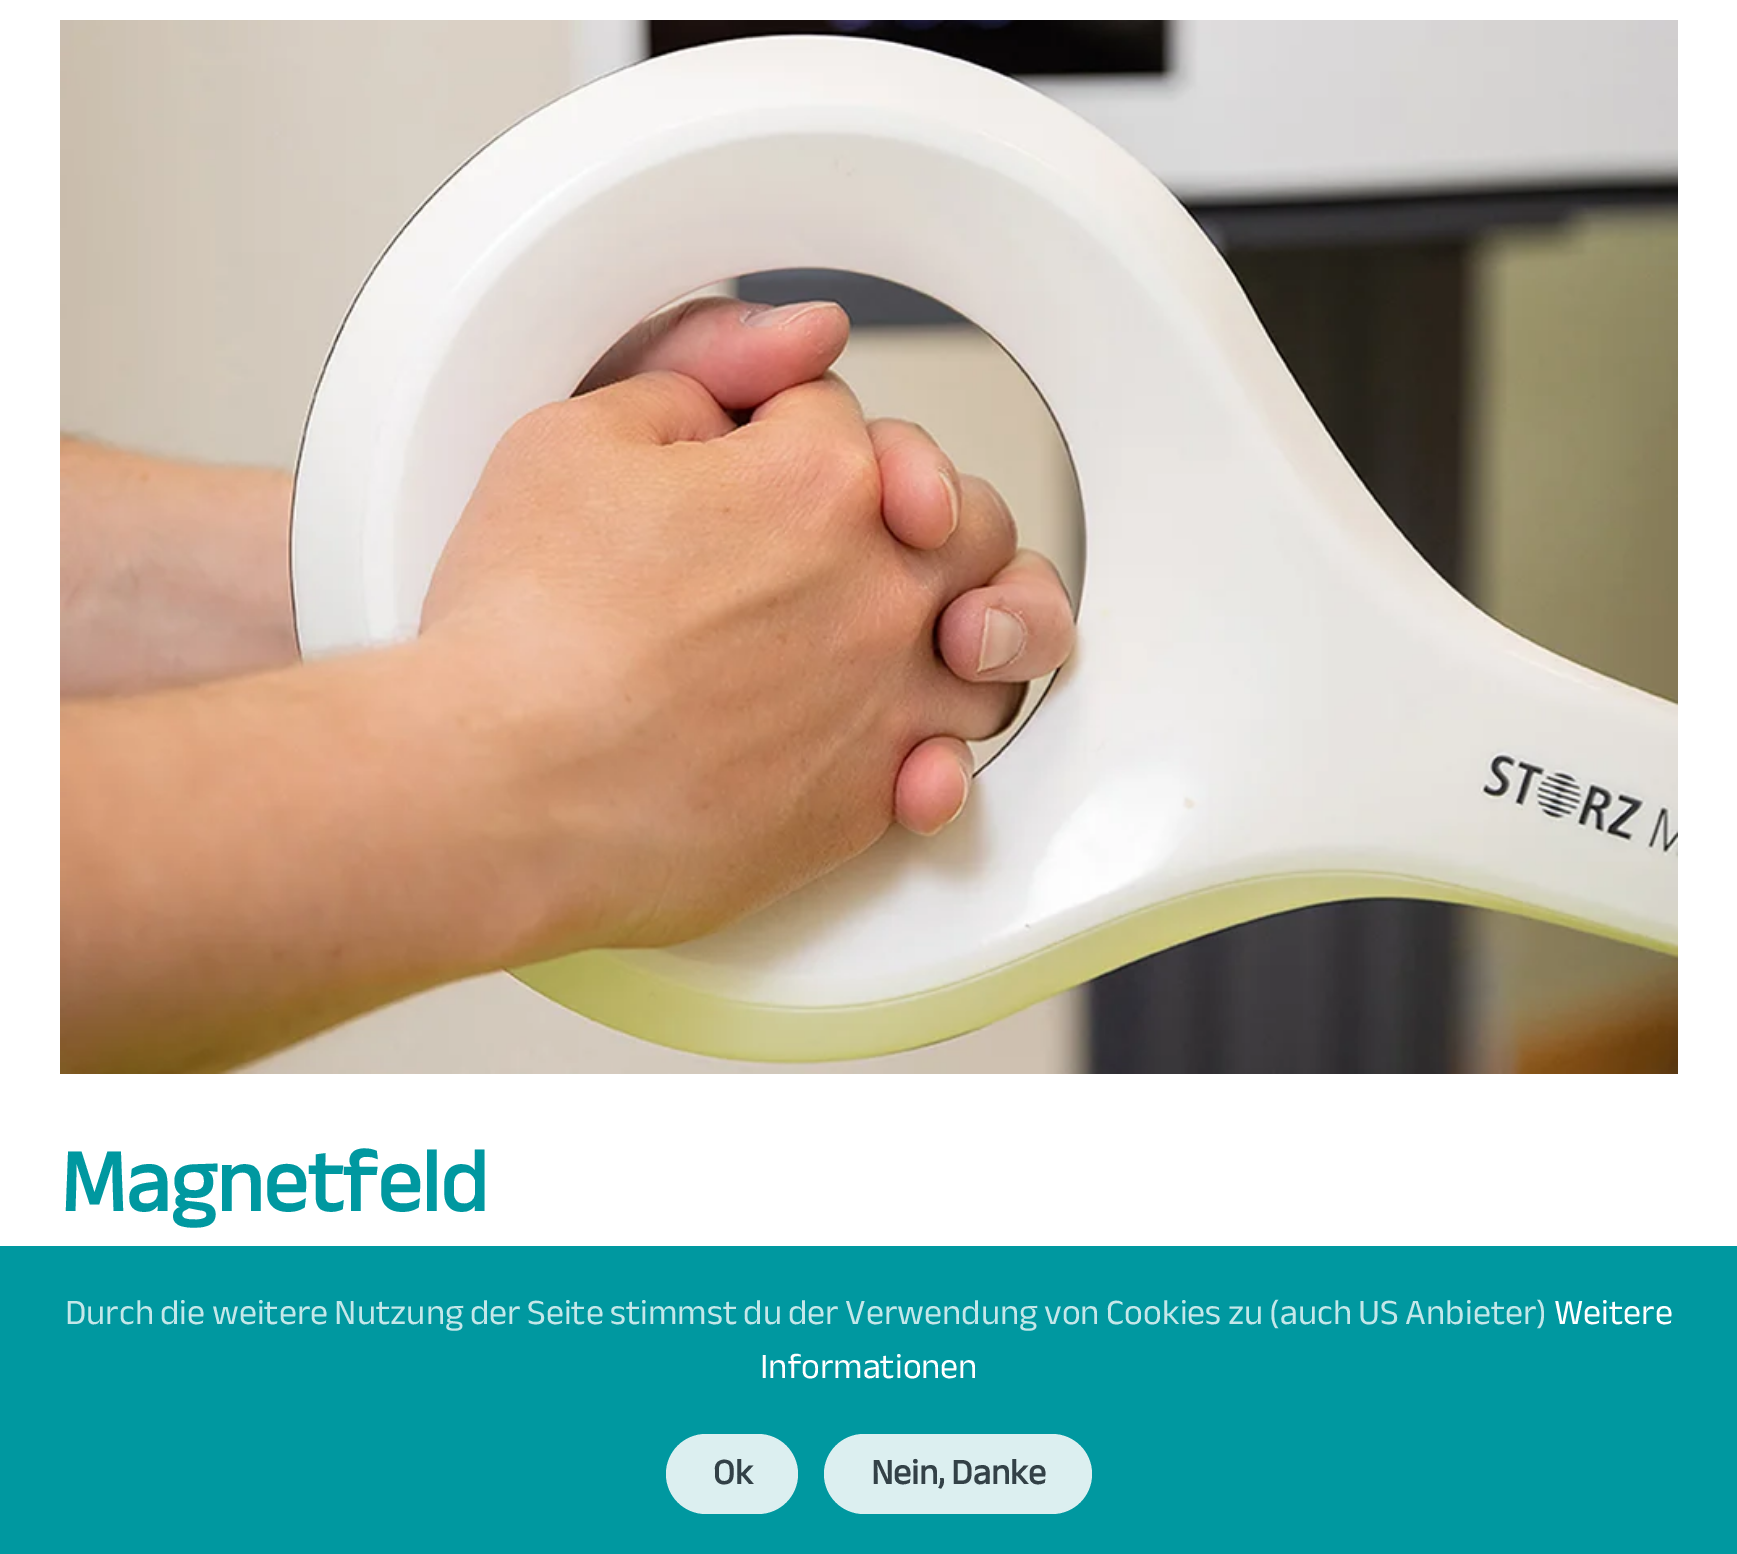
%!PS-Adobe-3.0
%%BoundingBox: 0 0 1737 1554
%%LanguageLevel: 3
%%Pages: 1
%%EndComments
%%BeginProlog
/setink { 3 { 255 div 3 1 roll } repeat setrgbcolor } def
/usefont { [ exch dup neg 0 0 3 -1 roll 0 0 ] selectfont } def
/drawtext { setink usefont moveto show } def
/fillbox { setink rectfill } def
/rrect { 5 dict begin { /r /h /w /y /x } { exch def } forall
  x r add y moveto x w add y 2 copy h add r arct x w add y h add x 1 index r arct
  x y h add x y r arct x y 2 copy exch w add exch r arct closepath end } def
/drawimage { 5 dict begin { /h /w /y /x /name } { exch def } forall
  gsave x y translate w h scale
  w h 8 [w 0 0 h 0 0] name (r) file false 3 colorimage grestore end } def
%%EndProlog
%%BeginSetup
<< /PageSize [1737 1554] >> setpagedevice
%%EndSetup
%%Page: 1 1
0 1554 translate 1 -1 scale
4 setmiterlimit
0 0 1737 1554 255 255 255 fillbox
(assets/img1.rgb) 60 20 1618 1054 drawimage
(Magnetfeld) 60 1211 /AnekBangla-Bold 89 0 152 160 drawtext
0 1246 1737 308 0 152 160 fillbox
(Durch die weitere Nutzung der Seite stimmst du der Verwendung von Cookies zu \(auch US Anbieter\)) 65 1324 /AnekBangla-Medium 36 196 231 233 drawtext
(Weitere) 1554 1324 /AnekBangla-Medium 36 255 255 255 drawtext
(Informationen) 760 1378 /AnekBangla-Medium 36 255 255 255 drawtext
220 239 240 setink
666 1434 132 80 40 rrect fill
(Ok) 713 1484 /AnekBangla-Bold 36 51 65 71 drawtext
220 239 240 setink
824 1434 268 80 40 rrect fill
(Nein, Danke) 871 1484 /AnekBangla-Bold 36 51 65 71 drawtext
showpage
%%EOF
